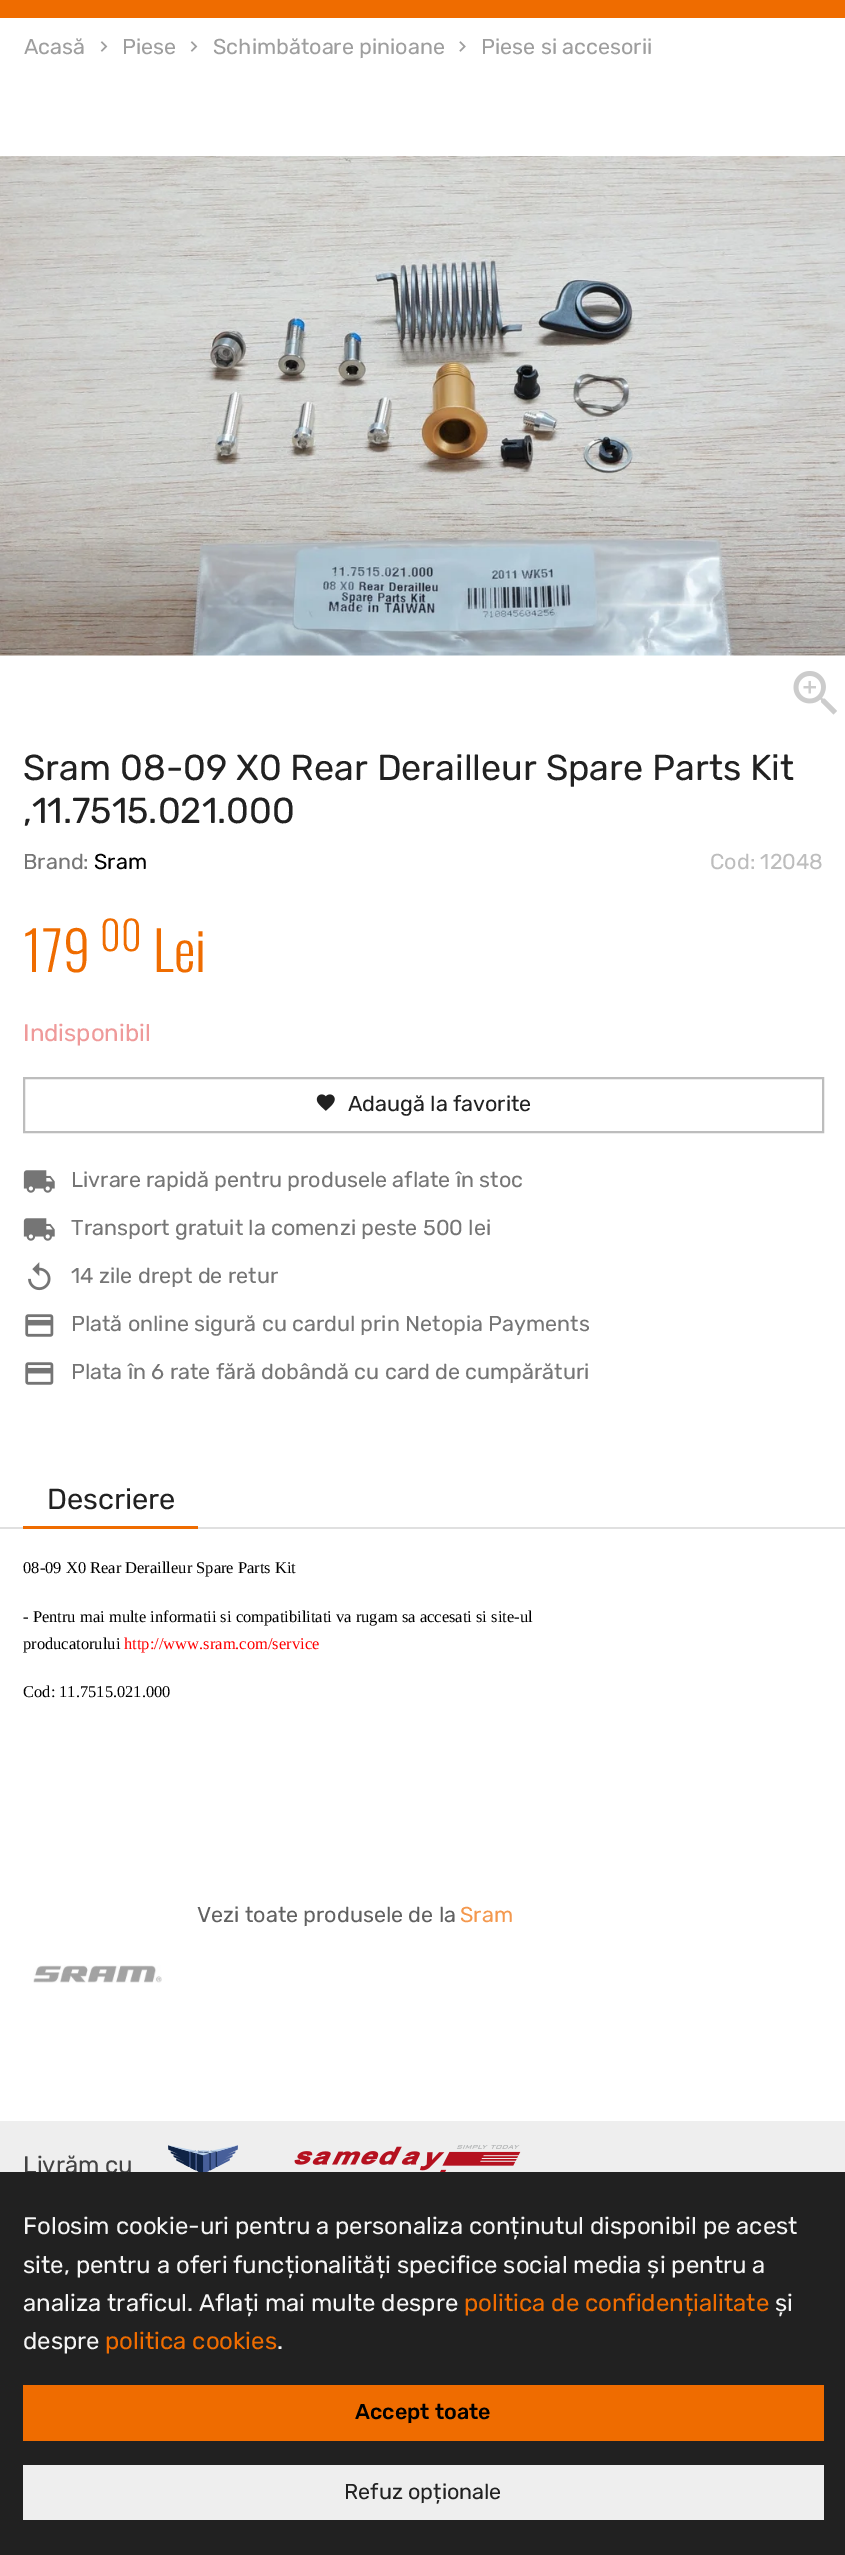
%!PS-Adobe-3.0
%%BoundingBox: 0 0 845 2555
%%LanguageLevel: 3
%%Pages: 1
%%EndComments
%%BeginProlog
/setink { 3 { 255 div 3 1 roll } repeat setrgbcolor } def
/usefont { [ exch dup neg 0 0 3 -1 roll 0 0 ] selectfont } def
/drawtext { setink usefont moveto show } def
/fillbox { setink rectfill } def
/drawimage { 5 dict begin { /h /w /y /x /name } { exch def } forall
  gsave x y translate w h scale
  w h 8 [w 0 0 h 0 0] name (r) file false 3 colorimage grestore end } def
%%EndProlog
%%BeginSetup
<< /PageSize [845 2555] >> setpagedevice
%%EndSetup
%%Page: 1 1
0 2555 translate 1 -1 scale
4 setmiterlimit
0 0 845 2555 255 255 255 fillbox
0 0 845 18 239 108 0 fillbox
(Acasă) 24 54 /Rubik-Regular 21.6 158 158 158 drawtext
(assets/img1.rgb) 100 41 8 11 drawimage
(Piese) 122 54 /Rubik-Regular 21.6 158 158 158 drawtext
(assets/img1.rgb) 190 41 8 11 drawimage
(Schimbătoare pinioane) 213 54 /Rubik-Regular 21.6 158 158 158 drawtext
(assets/img2.rgb) 459 41 7 11 drawimage
(Piese si accesorii) 481 54 /Rubik-Regular 21.6 158 158 158 drawtext
(assets/img3.rgb) 0 156 845 500 drawimage
(assets/img4.rgb) 793 671 44 44 drawimage
(Sram 08-09 X0 Rear Derailleur Spare Parts Kit) 23 780 /Rubik-Regular 36 33 33 33 drawtext
(,11.7515.021.000) 23 823 /Rubik-Regular 36 33 33 33 drawtext
(Brand:) 23 869 /Rubik-Regular 21.6 117 117 117 drawtext
(Sram) 94 869 /Rubik-Regular 21.6 0 0 0 drawtext
(Cod: 12048) 710 869 /Rubik-Regular 21.6 189 189 189 drawtext
(179) 23 972 /Oswald-Light 54 239 108 0 drawtext
(00) 100 951 /Oswald-Light 40 239 108 0 drawtext
(Lei) 153 972 /Oswald-Light 54 239 108 0 drawtext
(Indisponibil) 23 1041 /Rubik-Regular 24 239 154 154 drawtext
189 189 189 setink
2 setlinewidth
24 1078 799 54 rectstroke
(assets/img5.rgb) 316 1094 19 17 drawimage
(Adaugă la favorite) 348 1111 /Rubik-Regular 21.6 33 33 33 drawtext
(assets/img6.rgb) 23 1170 32 23 drawimage
(Livrare rapidă pentru produsele aflate în stoc) 71 1187 /Rubik-Regular 21.6 117 117 117 drawtext
(assets/img6.rgb) 23 1218 32 23 drawimage
(Transport gratuit la comenzi peste 500 lei) 71 1235 /Rubik-Regular 21.6 117 117 117 drawtext
(assets/img7.rgb) 28 1262 23 29 drawimage
(14 zile drept de retur) 71 1283 /Rubik-Regular 21.6 117 117 117 drawtext
(assets/img8.rgb) 25 1314 29 23 drawimage
(Plată online sigură cu cardul prin Netopia Payments) 71 1331 /Rubik-Regular 21.6 117 117 117 drawtext
(assets/img8.rgb) 25 1362 29 23 drawimage
(Plata în 6 rate fără dobândă cu card de cumpărături) 71 1379 /Rubik-Regular 21.6 117 117 117 drawtext
0 1527 845 2 224 224 224 fillbox
23 1526 175 3 239 108 0 fillbox
(Descriere) 47 1509 /Rubik-Regular 29 33 33 33 drawtext
(08-09 X0 Rear Derailleur Spare Parts Kit) 23 1573 /LiberationSerif-Regular 16.5 0 0 0 drawtext
(- Pentru mai multe informatii si compatibilitati va rugam sa accesati si site-ul) 23 1622 /LiberationSerif-Regular 16.5 0 0 0 drawtext
(producatorului) 23 1649 /LiberationSerif-Regular 16.5 0 0 0 drawtext
(http://www.sram.com/service) 124 1649 /LiberationSerif-Regular 16.5 255 0 0 drawtext
(Cod: 11.7515.021.000) 23 1697 /LiberationSerif-Regular 16.5 0 0 0 drawtext
(Vezi toate produsele de la) 197 1922 /Rubik-Regular 21.6 97 97 97 drawtext
(Sram) 460 1922 /Rubik-Regular 21.6 244 152 77 drawtext
(assets/img9.rgb) 33 1965 129 18 drawimage
0 2121 845 51 238 238 238 fillbox
(Livrăm cu) 23 2173 /Rubik-Regular 24 66 66 66 drawtext
(assets/img10.rgb) 168 2145 70 27 drawimage
(assets/img11.rgb) 294 2145 227 27 drawimage
0 2172 845 383 33 33 33 fillbox
(Folosim cookie-uri pentru a personaliza conținutul disponibil pe acest) 23 2234 /Rubik-Regular 24 245 245 245 drawtext
(site, pentru a oferi funcționalități specifice social media și pentru a) 23 2273 /Rubik-Regular 24 245 245 245 drawtext
(analiza traficul. Aflați mai multe despre) 23 2311 /Rubik-Regular 24 245 245 245 drawtext
(politica de confidențialitate) 464 2311 /Rubik-Regular 24 239 108 0 drawtext
(și) 775 2311 /Rubik-Regular 24 245 245 245 drawtext
(despre) 23 2349 /Rubik-Regular 24 245 245 245 drawtext
(politica cookies) 105 2349 /Rubik-Regular 24 239 108 0 drawtext
(.) 277 2349 /Rubik-Regular 24 245 245 245 drawtext
23 2385 801 56 239 108 0 fillbox
(Accept toate) 355 2419 /Rubik-Medium 21.6 0 0 0 drawtext
23 2465 801 55 238 238 238 fillbox
(Refuz opționale) 344 2499 /Rubik-Regular 21.6 33 33 33 drawtext
showpage
%%EOF
